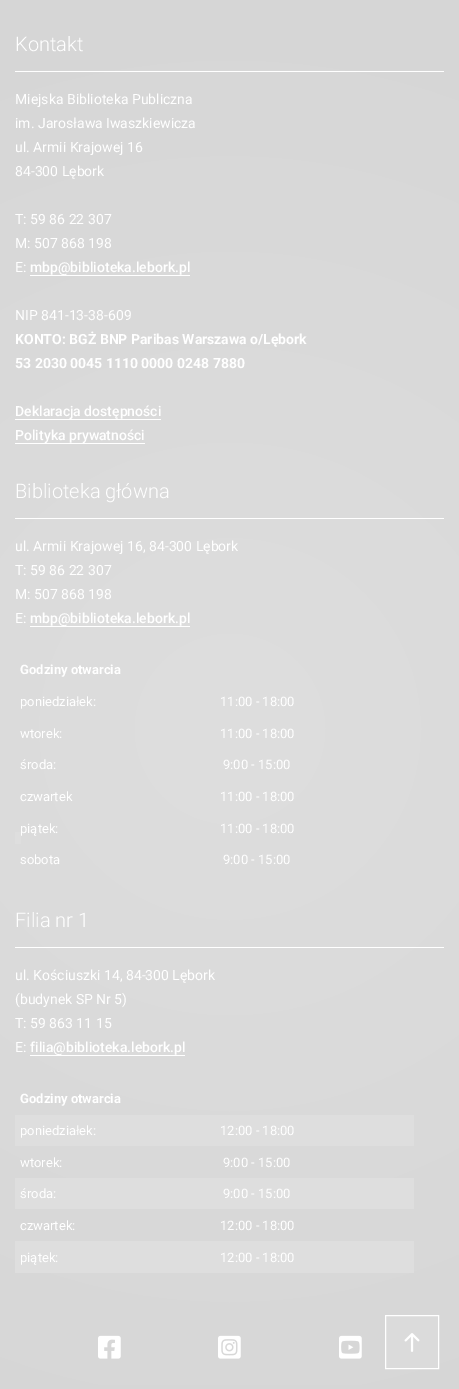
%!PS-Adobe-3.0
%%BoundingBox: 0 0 459 1389
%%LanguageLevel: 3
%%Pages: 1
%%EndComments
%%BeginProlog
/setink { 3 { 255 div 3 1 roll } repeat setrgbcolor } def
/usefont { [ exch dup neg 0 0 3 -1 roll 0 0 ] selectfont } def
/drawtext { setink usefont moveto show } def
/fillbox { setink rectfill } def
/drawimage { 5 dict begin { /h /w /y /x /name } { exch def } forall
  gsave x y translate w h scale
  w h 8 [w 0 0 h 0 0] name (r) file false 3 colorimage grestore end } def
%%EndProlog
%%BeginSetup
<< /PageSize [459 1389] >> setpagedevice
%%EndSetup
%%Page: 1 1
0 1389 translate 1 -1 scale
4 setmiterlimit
0 0 459 1389 255 255 255 fillbox
gsave 0 0 moveto 459 0 lineto 459 1385 lineto 0 1385 lineto closepath clip newpath 230 729 translate 764 764 scale
<< /ShadingType 3 /ColorSpace /DeviceRGB /Coords [0 0 0 0 0 1] /Extend [true true] /Function << /FunctionType 2 /Domain [0 1] /C0 [0.871 0.871 0.871] /C1 [0.839 0.839 0.839] /N 1 >> >> shfill grestore
15 71 429 1 255 255 255 fillbox
(Kontakt) 15 51 /Roboto-Light 20 255 255 255 drawtext
(Miejska Biblioteka Publiczna) 15 104 /Roboto-Regular 14 255 255 255 drawtext
(im. Jarosława Iwaszkiewicza) 15 128 /Roboto-Regular 14 255 255 255 drawtext
(ul. Armii Krajowej 16) 15 152 /Roboto-Regular 14 255 255 255 drawtext
(84-300 Lębork) 15 176 /Roboto-Regular 14 255 255 255 drawtext
(T: 59 86 22 307) 15 224 /Roboto-Regular 14 255 255 255 drawtext
(M: 507 868 198) 15 248 /Roboto-Regular 14 255 255 255 drawtext
(E:) 15 272 /Roboto-Regular 14 255 255 255 drawtext
(mbp@biblioteka.lebork.pl) 30 272 /Roboto-Medium 14 255 255 255 drawtext
30 275 160 1 255 255 255 fillbox
(NIP 841-13-38-609) 15 320 /Roboto-Regular 14 255 255 255 drawtext
(KONTO: BGŻ BNP Paribas Warszawa o/Lębork) 15 344 /Roboto-Bold 14 255 255 255 drawtext
(53 2030 0045 1110 0000 0248 7880) 15 368 /Roboto-Bold 14 255 255 255 drawtext
(Deklaracja dostępności) 15 416 /Roboto-Medium 14 255 255 255 drawtext
15 419 146 1 255 255 255 fillbox
(Polityka prywatności) 15 440 /Roboto-Medium 14 255 255 255 drawtext
15 443 130 1 255 255 255 fillbox
15 518 429 1 255 255 255 fillbox
(Biblioteka główna) 15 498 /Roboto-Light 20 255 255 255 drawtext
(ul. Armii Krajowej 16, 84-300 Lębork) 15 551 /Roboto-Regular 14 255 255 255 drawtext
(T: 59 86 22 307) 15 575 /Roboto-Regular 14 255 255 255 drawtext
(M: 507 868 198) 15 599 /Roboto-Regular 14 255 255 255 drawtext
(E:) 15 623 /Roboto-Regular 14 255 255 255 drawtext
(mbp@biblioteka.lebork.pl) 30 623 /Roboto-Medium 14 255 255 255 drawtext
30 626 160 1 255 255 255 fillbox
(Godziny otwarcia) 20 674 /Roboto-Bold 13 255 255 255 drawtext
(poniedziałek:) 20 706 /Roboto-Regular 13 255 255 255 drawtext
(11:00 - 18:00) 220 706 /Roboto-Regular 13 255 255 255 drawtext
(wtorek:) 20 738 /Roboto-Regular 13 255 255 255 drawtext
(11:00 - 18:00) 220 738 /Roboto-Regular 13 255 255 255 drawtext
(środa:) 20 769 /Roboto-Regular 13 255 255 255 drawtext
(9:00 - 15:00) 223 769 /Roboto-Regular 13 255 255 255 drawtext
(czwartek) 20 801 /Roboto-Regular 13 255 255 255 drawtext
(11:00 - 18:00) 220 801 /Roboto-Regular 13 255 255 255 drawtext
15 832 6 12 222 222 222 fillbox
(piątek:) 20 833 /Roboto-Regular 13 255 255 255 drawtext
(11:00 - 18:00) 220 833 /Roboto-Regular 13 255 255 255 drawtext
(sobota) 20 864 /Roboto-Regular 13 255 255 255 drawtext
(9:00 - 15:00) 223 864 /Roboto-Regular 13 255 255 255 drawtext
15 947 429 1 255 255 255 fillbox
(Filia nr 1) 15 927 /Roboto-Light 20 255 255 255 drawtext
(ul. Kościuszki 14, 84-300 Lębork) 15 980 /Roboto-Regular 14 255 255 255 drawtext
(\(budynek SP Nr 5\)) 15 1004 /Roboto-Regular 14 255 255 255 drawtext
(T: 59 863 11 15) 15 1028 /Roboto-Regular 14 255 255 255 drawtext
(E:) 15 1052 /Roboto-Regular 14 255 255 255 drawtext
(filia@biblioteka.lebork.pl) 30 1052 /Roboto-Medium 14 255 255 255 drawtext
30 1055 155 1 255 255 255 fillbox
(Godziny otwarcia) 20 1103 /Roboto-Bold 13 255 255 255 drawtext
15 1115 399 31 222 222 222 fillbox
(poniedziałek:) 20 1135 /Roboto-Regular 13 255 255 255 drawtext
(12:00 - 18:00) 220 1135 /Roboto-Regular 13 255 255 255 drawtext
(wtorek:) 20 1167 /Roboto-Regular 13 255 255 255 drawtext
(9:00 - 15:00) 223 1167 /Roboto-Regular 13 255 255 255 drawtext
15 1178 399 31 222 222 222 fillbox
(środa:) 20 1198 /Roboto-Regular 13 255 255 255 drawtext
(9:00 - 15:00) 223 1198 /Roboto-Regular 13 255 255 255 drawtext
(czwartek:) 20 1230 /Roboto-Regular 13 255 255 255 drawtext
(12:00 - 18:00) 220 1230 /Roboto-Regular 13 255 255 255 drawtext
15 1241 399 32 222 222 222 fillbox
(piątek:) 20 1262 /Roboto-Regular 13 255 255 255 drawtext
(12:00 - 18:00) 220 1262 /Roboto-Regular 13 255 255 255 drawtext
(assets/img1.rgb) 98 1335 23 24 drawimage
(assets/img2.rgb) 218 1335 23 24 drawimage
(assets/img3.rgb) 339 1335 23 24 drawimage
0 1385 459 4 214 214 214 fillbox
386 1316 52 52 219 219 219 fillbox
(assets/img4.rgb) 404 1333 16 19 drawimage
255 255 255 setink
385.5 1315.5 53 53 rectstroke
showpage
%%EOF
